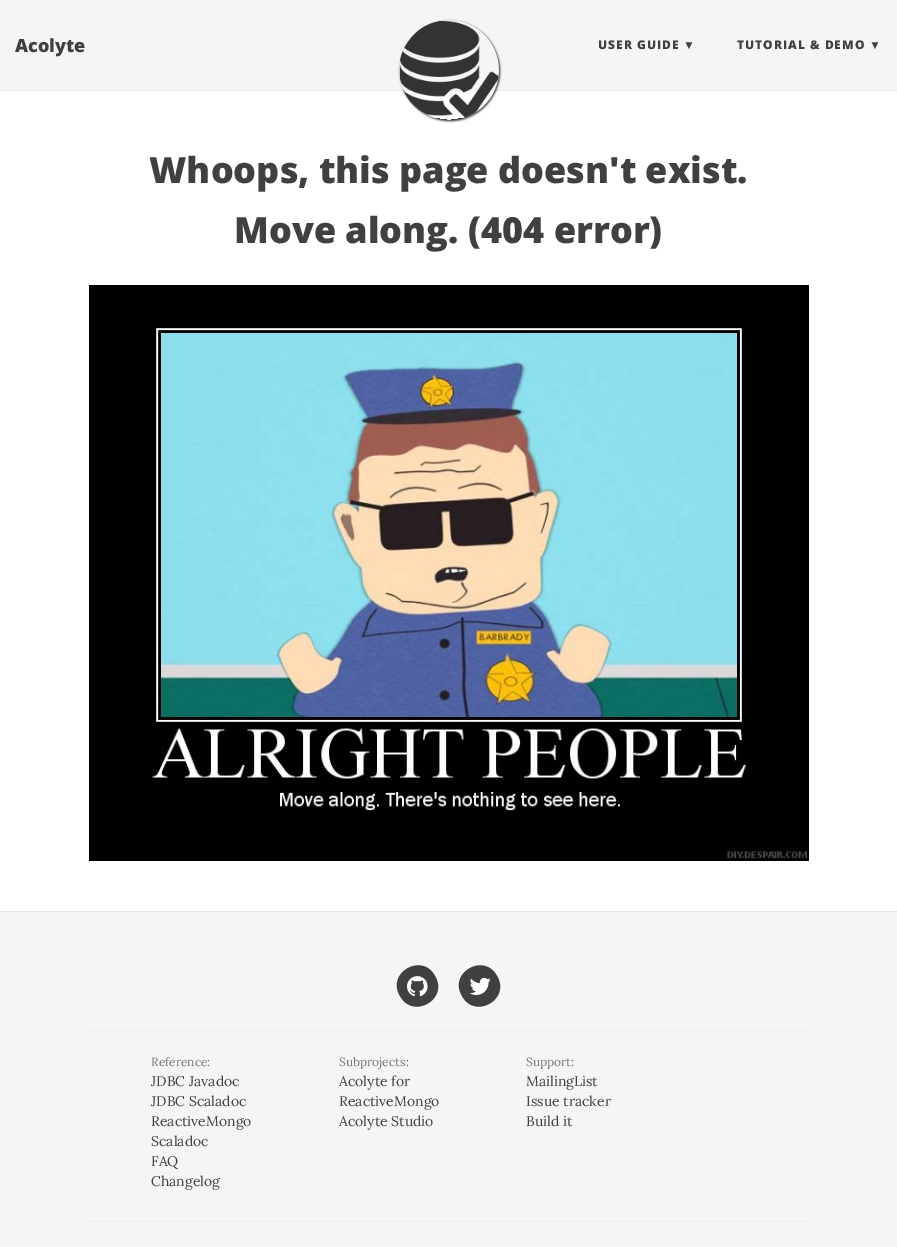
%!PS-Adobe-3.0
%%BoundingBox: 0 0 897 1247
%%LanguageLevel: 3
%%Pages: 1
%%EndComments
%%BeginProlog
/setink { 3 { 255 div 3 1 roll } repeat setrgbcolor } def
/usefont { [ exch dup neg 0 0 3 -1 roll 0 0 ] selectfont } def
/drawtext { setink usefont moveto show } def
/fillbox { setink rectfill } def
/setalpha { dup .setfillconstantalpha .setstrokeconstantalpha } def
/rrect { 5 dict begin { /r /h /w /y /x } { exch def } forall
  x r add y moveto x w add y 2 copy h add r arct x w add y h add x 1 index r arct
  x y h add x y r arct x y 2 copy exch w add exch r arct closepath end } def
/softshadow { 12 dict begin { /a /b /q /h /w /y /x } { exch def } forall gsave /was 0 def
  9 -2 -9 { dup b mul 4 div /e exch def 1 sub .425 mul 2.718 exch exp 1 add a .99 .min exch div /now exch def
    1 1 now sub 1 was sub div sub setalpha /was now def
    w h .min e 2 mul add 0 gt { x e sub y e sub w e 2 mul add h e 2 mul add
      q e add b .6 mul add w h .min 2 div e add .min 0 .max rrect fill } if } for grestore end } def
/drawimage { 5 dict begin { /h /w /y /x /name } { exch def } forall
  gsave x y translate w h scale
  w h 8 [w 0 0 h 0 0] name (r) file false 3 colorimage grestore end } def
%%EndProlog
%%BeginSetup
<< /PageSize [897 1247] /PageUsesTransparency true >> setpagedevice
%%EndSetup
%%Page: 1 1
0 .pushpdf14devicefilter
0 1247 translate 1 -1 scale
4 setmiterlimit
0 0 897 1247 255 255 255 fillbox
0 0 897 90 245 245 245 fillbox
0 90 897 1 234 234 234 fillbox
(Acolyte) 15 52 /OpenSans-ExtraBold 18 64 64 64 drawtext
gsave
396 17 moveto 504 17 lineto 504 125 lineto 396 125 lineto closepath 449 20 moveto 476.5 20 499 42.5 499 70 curveto 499 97.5 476.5 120 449 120 curveto 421.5 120 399 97.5 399 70 curveto 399 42.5 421.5 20 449 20 curveto closepath eoclip newpath
0 0 0 setink
400 21 100 100 50 1 0.8 softshadow
grestore
(assets/img1.rgb) 399 20 100 98 drawimage
/OpenSans-ExtraBold 12 usefont
598 49 moveto 1 0 (USER GUIDE) ashow
/LiberationSans-Bold 12 usefont
683 49 moveto 1 0 (▼) ashow
/OpenSans-ExtraBold 12 usefont
737 49 moveto 1 0 (TUTORIAL & DEMO) ashow
/LiberationSans-Bold 12 usefont
869 49 moveto 1 0 (▼) ashow
(Whoops, this page doesn't exist.) 149 183 /OpenSans-ExtraBold 36 64 64 64 drawtext
(Move along. \(404 error\)) 234 243 /OpenSans-ExtraBold 36 64 64 64 drawtext
(assets/img2.rgb) 89 285 720 576 drawimage
0 912 897 335 245 245 245 fillbox
0 911 897 1 234 234 234 fillbox
64 64 64 setink
435 976 moveto 449 999 413 1020 400 996 curveto 386 973 422 952 435 976 curveto closepath fill
(assets/img3.rgb) 407 976 21 21 drawimage
497 976 moveto 511 999 475 1020 462 996 curveto 448 973 484 952 497 976 curveto closepath fill
(assets/img4.rgb) 469 977 22 18 drawimage
89 1030 720 1 238 238 238 fillbox
(Reference:) 151 1066 /Lora-Regular 12 119 119 119 drawtext
(JDBC Javadoc) 151 1086 /Lora-Regular 14 64 64 64 drawtext
(JDBC Scaladoc) 151 1106 /Lora-Regular 14 64 64 64 drawtext
(ReactiveMongo) 151 1126 /Lora-Regular 14 64 64 64 drawtext
(Scaladoc) 151 1146 /Lora-Regular 14 64 64 64 drawtext
(FAQ) 151 1166 /Lora-Regular 14 64 64 64 drawtext
(Changelog) 151 1186 /Lora-Regular 14 64 64 64 drawtext
(Subprojects:) 339 1066 /Lora-Regular 12 119 119 119 drawtext
(Acolyte for) 339 1086 /Lora-Regular 14 64 64 64 drawtext
(ReactiveMongo) 339 1106 /Lora-Regular 14 64 64 64 drawtext
(Acolyte Studio) 339 1126 /Lora-Regular 14 64 64 64 drawtext
(Support:) 526 1066 /Lora-Regular 12 119 119 119 drawtext
(MailingList) 526 1086 /Lora-Regular 14 64 64 64 drawtext
(Issue tracker) 526 1106 /Lora-Regular 14 64 64 64 drawtext
(Build it) 526 1126 /Lora-Regular 14 64 64 64 drawtext
89 1221 720 1 238 238 238 fillbox
.poppdf14devicefilter showpage
%%EOF
